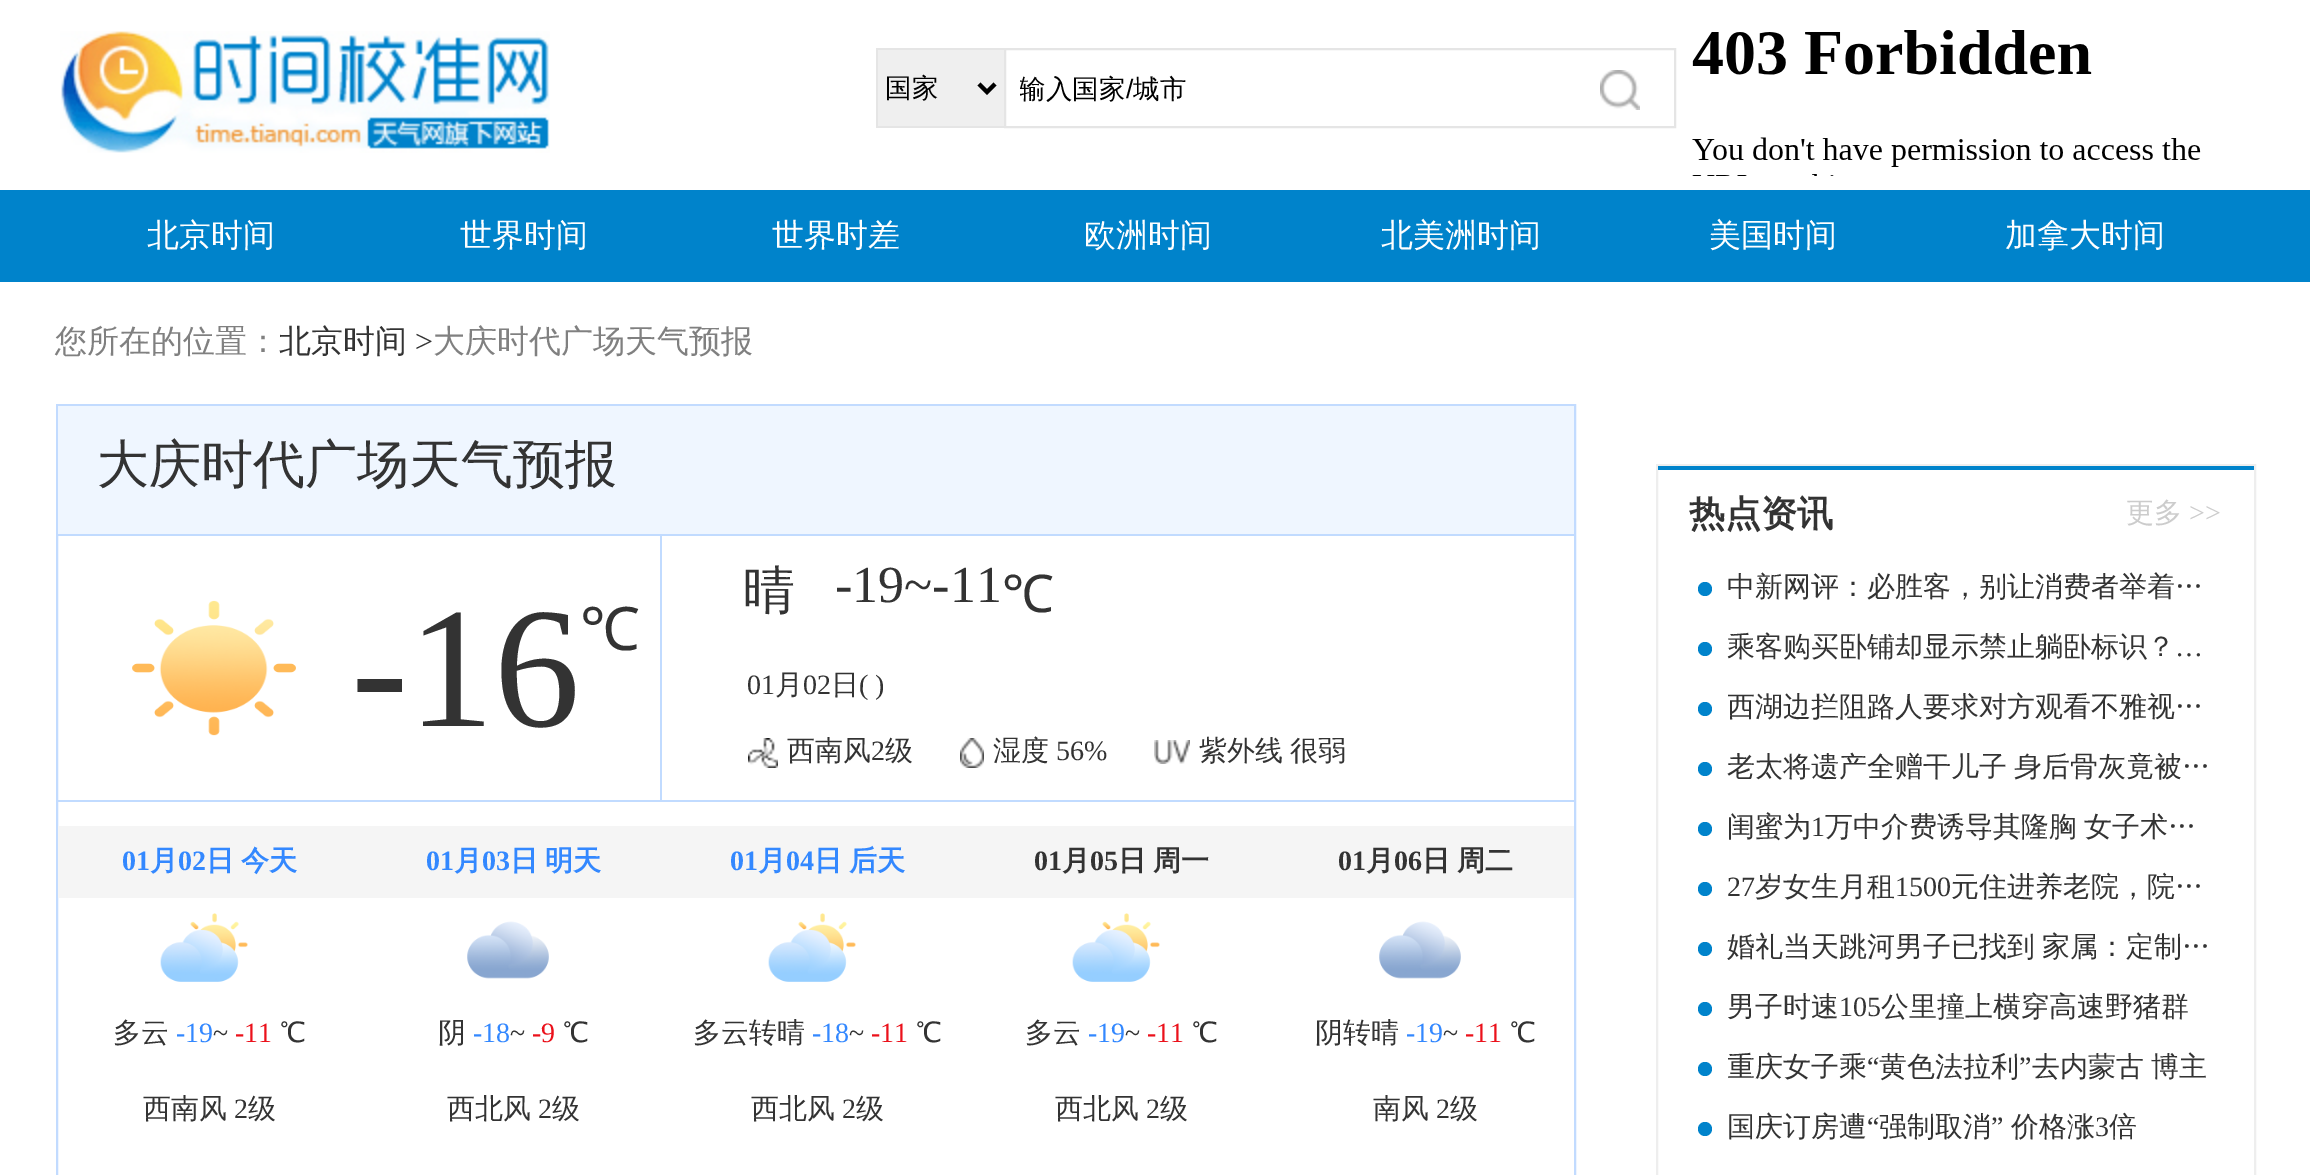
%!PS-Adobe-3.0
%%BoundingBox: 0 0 2310 1175
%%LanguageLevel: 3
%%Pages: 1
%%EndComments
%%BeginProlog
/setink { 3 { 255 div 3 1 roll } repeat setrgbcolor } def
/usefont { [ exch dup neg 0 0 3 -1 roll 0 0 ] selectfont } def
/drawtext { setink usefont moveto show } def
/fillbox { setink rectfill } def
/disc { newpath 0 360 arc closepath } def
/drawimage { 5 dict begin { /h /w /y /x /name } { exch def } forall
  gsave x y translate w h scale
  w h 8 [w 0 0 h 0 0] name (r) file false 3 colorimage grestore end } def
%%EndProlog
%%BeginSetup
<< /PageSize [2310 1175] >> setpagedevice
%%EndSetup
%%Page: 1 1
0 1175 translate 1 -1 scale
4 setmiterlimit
0 0 2310 1175 255 255 255 fillbox
(assets/img1.rgb) 60 31 490 122 drawimage
878 50 126 76 239 239 239 fillbox
876 48 128 2 229 229 229 fillbox
876 126 128 2 229 229 229 fillbox
876 48 2 80 229 229 229 fillbox
0 0 0 setink
4 setlinewidth
979 84 moveto 987 92 lineto 995 84 lineto stroke
(国家) 885 97 /WenQuanYiZenHei-Medium 26.5 0 0 0 drawtext
229 229 229 setink
2 setlinewidth
1005 49 670 78 rectstroke
gsave
1020 50 572 76 rectclip
(输入国家) 1019 98 /WenQuanYiZenHei-Medium 26.5 0 0 0 drawtext
grestore
(/) 1126 98 /LiberationSans-Regular 26.5 0 0 0 drawtext
(城市) 1133 98 /WenQuanYiZenHei-Medium 26.5 0 0 0 drawtext
(assets/img2.rgb) 1600 70 40 40 drawimage
(assets/img3.rgb) 1692 30 509 146 drawimage
0 190 2310 92 0 131 203 fillbox
(北京时间) 147 246 /WenQuanYiZenHei-Medium 32 255 255 255 drawtext
(世界时间) 460 246 /WenQuanYiZenHei-Medium 32 255 255 255 drawtext
(世界时差) 772 246 /WenQuanYiZenHei-Medium 32 255 255 255 drawtext
(欧洲时间) 1084 246 /WenQuanYiZenHei-Medium 32 255 255 255 drawtext
(北美洲时间) 1381 246 /WenQuanYiZenHei-Medium 32 255 255 255 drawtext
(美国时间) 1709 246 /WenQuanYiZenHei-Medium 32 255 255 255 drawtext
(加拿大时间) 2005 246 /WenQuanYiZenHei-Medium 32 255 255 255 drawtext
(您所在的位置：) 55 352 /WenQuanYiZenHei-Medium 32 128 128 128 drawtext
(北京时间) 279 352 /WenQuanYiZenHei-Medium 32 51 51 51 drawtext
(>) 415 352 /LiberationSerif-Regular 32 51 51 51 drawtext
(大庆时代广场天气预报) 433 352 /WenQuanYiZenHei-Medium 32 128 128 128 drawtext
194 219 255 setink
57 405 1518 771 rectstroke
58 406 1516 128 239 246 255 fillbox
58 534 1516 2 193 219 255 fillbox
(大庆时代广场天气预报) 97 482 /WenQuanYiZenHei-Medium 52 51 51 51 drawtext
58 800 1516 2 193 219 255 fillbox
660 536 2 264 193 219 255 fillbox
(assets/img4.rgb) 132 600 164 136 drawimage
(-16) 351 726 /LiberationSerif-Regular 172 51 51 51 drawtext
(℃) 580 650 /NotoSans-Regular 60 51 51 51 drawtext
(晴) 743 608 /WenQuanYiZenHei-Medium 52 51 51 51 drawtext
(-19~-11) 835 602 /LiberationSerif-Regular 52 51 51 51 drawtext
(℃) 1002 612 /NotoSans-Regular 52 51 51 51 drawtext
(01) 747 694 /LiberationSerif-Regular 28 51 51 51 drawtext
(月) 775 694 /WenQuanYiZenHei-Medium 28 51 51 51 drawtext
(02) 803 694 /LiberationSerif-Regular 28 51 51 51 drawtext
(日) 831 694 /WenQuanYiZenHei-Medium 28 51 51 51 drawtext
(\( \)) 859 694 /LiberationSerif-Regular 28 51 51 51 drawtext
(assets/img5.rgb) 748 738 30 30 drawimage
(西南风) 787 760 /WenQuanYiZenHei-Medium 28 51 51 51 drawtext
(2) 871 760 /LiberationSerif-Regular 28 51 51 51 drawtext
(级) 885 760 /WenQuanYiZenHei-Medium 28 51 51 51 drawtext
(assets/img6.rgb) 960 738 24 30 drawimage
(湿度) 993 760 /WenQuanYiZenHei-Medium 28 51 51 51 drawtext
(56%) 1056 760 /LiberationSerif-Regular 28 51 51 51 drawtext
(assets/img7.rgb) 1154 740 36 24 drawimage
/WenQuanYiZenHei-Medium 28 usefont
1199 760 moveto -1 0 32 (紫外线 很弱) widthshow
58 826 1516 72 245 245 245 fillbox
(01) 122 870 /LiberationSerif-Bold 28 51 136 255 drawtext
(月) 150 870 /WenQuanYiZenHei-Bold 28 51 136 255 drawtext
(02) 178 870 /LiberationSerif-Bold 28 51 136 255 drawtext
/WenQuanYiZenHei-Bold 28 usefont
206 870 moveto -1 0 32 (日 今天) widthshow
(assets/img8.rgb) 160 913 88 69 drawimage
(多云) 113 1042 /WenQuanYiZenHei-Medium 28 51 51 51 drawtext
(-19) 176 1042 /LiberationSerif-Regular 28 51 136 255 drawtext
(~) 213 1042 /LiberationSerif-Regular 28 51 51 51 drawtext
(-11) 235 1042 /LiberationSerif-Regular 28 235 17 27 drawtext
(℃) 280 1042 /WenQuanYiZenHei-Medium 28 51 51 51 drawtext
(西南风) 143 1118 /WenQuanYiZenHei-Medium 28 51 51 51 drawtext
(2) 234 1118 /LiberationSerif-Regular 28 51 51 51 drawtext
(级) 248 1118 /WenQuanYiZenHei-Medium 28 51 51 51 drawtext
(01) 426 870 /LiberationSerif-Bold 28 51 136 255 drawtext
(月) 454 870 /WenQuanYiZenHei-Bold 28 51 136 255 drawtext
(03) 482 870 /LiberationSerif-Bold 28 51 136 255 drawtext
/WenQuanYiZenHei-Bold 28 usefont
510 870 moveto -1 0 32 (日 明天) widthshow
(assets/img9.rgb) 467 921 82 58 drawimage
(阴) 438 1042 /WenQuanYiZenHei-Medium 28 51 51 51 drawtext
(-18) 473 1042 /LiberationSerif-Regular 28 51 136 255 drawtext
(~) 510 1042 /LiberationSerif-Regular 28 51 51 51 drawtext
(-9) 532 1042 /LiberationSerif-Regular 28 235 17 27 drawtext
(℃) 563 1042 /WenQuanYiZenHei-Medium 28 51 51 51 drawtext
(西北风) 447 1118 /WenQuanYiZenHei-Medium 28 51 51 51 drawtext
(2) 538 1118 /LiberationSerif-Regular 28 51 51 51 drawtext
(级) 552 1118 /WenQuanYiZenHei-Medium 28 51 51 51 drawtext
(01) 730 870 /LiberationSerif-Bold 28 51 136 255 drawtext
(月) 758 870 /WenQuanYiZenHei-Bold 28 51 136 255 drawtext
(04) 786 870 /LiberationSerif-Bold 28 51 136 255 drawtext
/WenQuanYiZenHei-Bold 28 usefont
814 870 moveto -1 0 32 (日 后天) widthshow
(assets/img10.rgb) 768 913 88 69 drawimage
(多云转晴) 693 1042 /WenQuanYiZenHei-Medium 28 51 51 51 drawtext
(-18) 812 1042 /LiberationSerif-Regular 28 51 136 255 drawtext
(~) 849 1042 /LiberationSerif-Regular 28 51 51 51 drawtext
(-11) 871 1042 /LiberationSerif-Regular 28 235 17 27 drawtext
(℃) 916 1042 /WenQuanYiZenHei-Medium 28 51 51 51 drawtext
(西北风) 751 1118 /WenQuanYiZenHei-Medium 28 51 51 51 drawtext
(2) 842 1118 /LiberationSerif-Regular 28 51 51 51 drawtext
(级) 856 1118 /WenQuanYiZenHei-Medium 28 51 51 51 drawtext
(01) 1034 870 /LiberationSerif-Bold 28 51 51 51 drawtext
(月) 1062 870 /WenQuanYiZenHei-Bold 28 51 51 51 drawtext
(05) 1090 870 /LiberationSerif-Bold 28 51 51 51 drawtext
/WenQuanYiZenHei-Bold 28 usefont
1118 870 moveto -1 0 32 (日 周一) widthshow
(assets/img10.rgb) 1072 913 88 69 drawimage
(多云) 1025 1042 /WenQuanYiZenHei-Medium 28 51 51 51 drawtext
(-19) 1088 1042 /LiberationSerif-Regular 28 51 136 255 drawtext
(~) 1125 1042 /LiberationSerif-Regular 28 51 51 51 drawtext
(-11) 1147 1042 /LiberationSerif-Regular 28 235 17 27 drawtext
(℃) 1192 1042 /WenQuanYiZenHei-Medium 28 51 51 51 drawtext
(西北风) 1055 1118 /WenQuanYiZenHei-Medium 28 51 51 51 drawtext
(2) 1146 1118 /LiberationSerif-Regular 28 51 51 51 drawtext
(级) 1160 1118 /WenQuanYiZenHei-Medium 28 51 51 51 drawtext
(01) 1338 870 /LiberationSerif-Bold 28 51 51 51 drawtext
(月) 1366 870 /WenQuanYiZenHei-Bold 28 51 51 51 drawtext
(06) 1394 870 /LiberationSerif-Bold 28 51 51 51 drawtext
/WenQuanYiZenHei-Bold 28 usefont
1422 870 moveto -1 0 32 (日 周二) widthshow
(assets/img11.rgb) 1379 921 82 58 drawimage
(阴转晴) 1315 1042 /WenQuanYiZenHei-Medium 28 51 51 51 drawtext
(-19) 1406 1042 /LiberationSerif-Regular 28 51 136 255 drawtext
(~) 1443 1042 /LiberationSerif-Regular 28 51 51 51 drawtext
(-11) 1465 1042 /LiberationSerif-Regular 28 235 17 27 drawtext
(℃) 1510 1042 /WenQuanYiZenHei-Medium 28 51 51 51 drawtext
(南风) 1373 1118 /WenQuanYiZenHei-Medium 28 51 51 51 drawtext
(2) 1436 1118 /LiberationSerif-Regular 28 51 51 51 drawtext
(级) 1450 1118 /WenQuanYiZenHei-Medium 28 51 51 51 drawtext
238 238 238 setink
1657 465 598 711 rectstroke
1658 466 596 4 0 131 203 fillbox
(热点资讯) 1689 526 /WenQuanYiZenHei-Bold 36 51 51 51 drawtext
(更多) 2126 522 /WenQuanYiZenHei-Medium 28 204 204 204 drawtext
(>>) 2189 522 /LiberationSerif-Regular 28 204 204 204 drawtext
0 131 203 setink
1705 589 7 disc fill
(中新网评：必胜客，别让消费者举着…) 1727 596 /WenQuanYiZenHei-Medium 28 51 51 51 drawtext
0 131 203 setink
1705 649 7 disc fill
(乘客购买卧铺却显示禁止躺卧标识？) 1727 656 /WenQuanYiZenHei-Medium 28 51 51 51 drawtext
(…) 2175 656 /LiberationSerif-Regular 28 51 51 51 drawtext
0 131 203 setink
1705 709 7 disc fill
gsave
1728 678 486 60 rectclip
(西湖边拦阻路人要求对方观看不雅视…) 1727 716 /WenQuanYiZenHei-Medium 28 51 51 51 drawtext
grestore
1705 769 7 disc fill
/WenQuanYiZenHei-Medium 28 usefont
51 51 51 setink
1727 776 moveto -1 0 32 (老太将遗产全赠干儿子 身后骨灰竟被…) widthshow
0 131 203 setink
1705 829 7 disc fill
(闺蜜为) 1727 836 /WenQuanYiZenHei-Medium 28 51 51 51 drawtext
(1) 1811 836 /LiberationSerif-Regular 28 51 51 51 drawtext
/WenQuanYiZenHei-Medium 28 usefont
1825 836 moveto -1 0 32 (万中介费诱导其隆胸 女子术…) widthshow
0 131 203 setink
1705 889 7 disc fill
(27) 1727 896 /LiberationSerif-Regular 28 51 51 51 drawtext
(岁女生月租) 1755 896 /WenQuanYiZenHei-Medium 28 51 51 51 drawtext
(1500) 1895 896 /LiberationSerif-Regular 28 51 51 51 drawtext
(元住进养老院，院…) 1951 896 /WenQuanYiZenHei-Medium 28 51 51 51 drawtext
0 131 203 setink
1705 949 7 disc fill
51 51 51 setink
1727 956 moveto -1 0 32 (婚礼当天跳河男子已找到 家属：定制…) widthshow
0 131 203 setink
1705 1009 7 disc fill
(男子时速) 1727 1016 /WenQuanYiZenHei-Medium 28 51 51 51 drawtext
(105) 1839 1016 /LiberationSerif-Regular 28 51 51 51 drawtext
(公里撞上横穿高速野猪群) 1881 1016 /WenQuanYiZenHei-Medium 28 51 51 51 drawtext
0 131 203 setink
1705 1069 7 disc fill
gsave
1728 1038 486 60 rectclip
(重庆女子乘) 1727 1076 /WenQuanYiZenHei-Medium 28 51 51 51 drawtext
grestore
(“) 1867 1076 /LiberationSerif-Regular 28 51 51 51 drawtext
(黄色法拉利) 1879 1076 /WenQuanYiZenHei-Medium 28 51 51 51 drawtext
(”) 2019 1076 /LiberationSerif-Regular 28 51 51 51 drawtext
/WenQuanYiZenHei-Medium 28 usefont
2032 1076 moveto -1 0 32 (去内蒙古 博主) widthshow
0 131 203 setink
1705 1129 7 disc fill
(国庆订房遭) 1727 1136 /WenQuanYiZenHei-Medium 28 51 51 51 drawtext
(“) 1867 1136 /LiberationSerif-Regular 28 51 51 51 drawtext
(强制取消) 1879 1136 /WenQuanYiZenHei-Medium 28 51 51 51 drawtext
(”) 1991 1136 /LiberationSerif-Regular 28 51 51 51 drawtext
(价格涨) 2011 1136 /WenQuanYiZenHei-Medium 28 51 51 51 drawtext
(3) 2095 1136 /LiberationSerif-Regular 28 51 51 51 drawtext
(倍) 2109 1136 /WenQuanYiZenHei-Medium 28 51 51 51 drawtext
showpage
%%EOF
